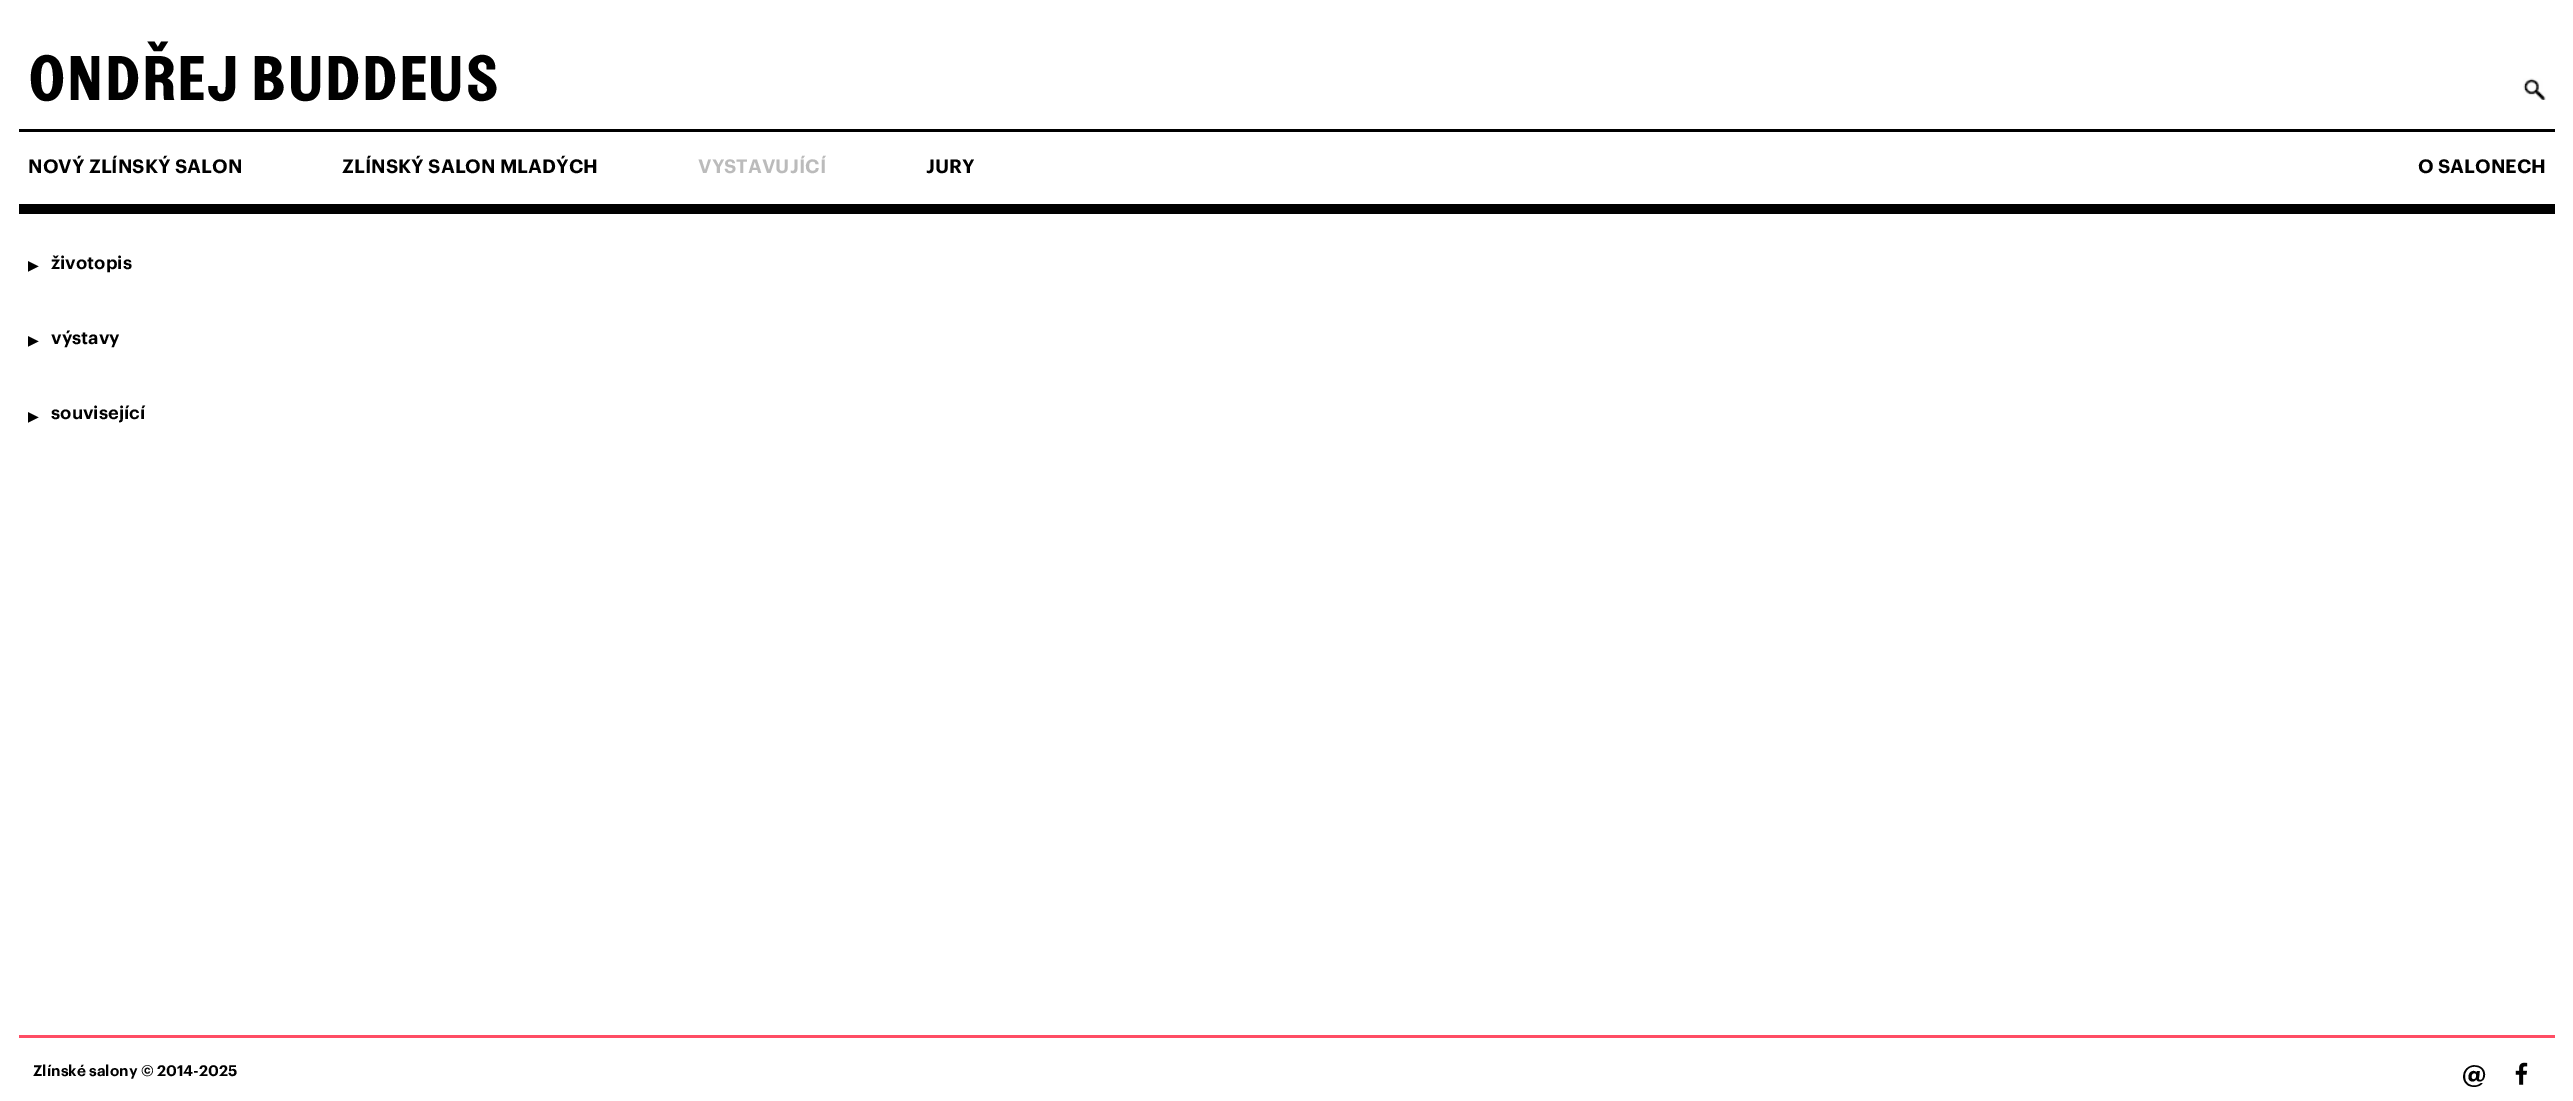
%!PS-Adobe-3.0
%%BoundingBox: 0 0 2573 1101
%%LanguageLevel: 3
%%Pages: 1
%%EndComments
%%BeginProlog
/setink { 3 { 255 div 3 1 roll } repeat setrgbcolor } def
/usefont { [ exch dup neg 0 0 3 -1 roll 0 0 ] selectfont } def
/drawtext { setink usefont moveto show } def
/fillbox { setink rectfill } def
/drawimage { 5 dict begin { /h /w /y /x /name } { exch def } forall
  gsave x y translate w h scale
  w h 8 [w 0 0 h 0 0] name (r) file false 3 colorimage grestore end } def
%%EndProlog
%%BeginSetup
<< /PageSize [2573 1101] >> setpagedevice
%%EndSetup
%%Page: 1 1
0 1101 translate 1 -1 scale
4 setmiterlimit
0 0 2573 1101 255 255 255 fillbox
19 129 2536 3 0 0 0 fillbox
(ONDŘEJ BUDDEUS) 28 100 /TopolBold-Bold 62 0 0 0 drawtext
(assets/img1.rgb) 2523 78 23 22 drawimage
19 204 2536 10 0 0 0 fillbox
(NOVÝ ZLÍNSKÝ SALON) 28 173 /Graphik-SemiBold 19 0 0 0 drawtext
(ZLÍNSKÝ SALON MLADÝCH) 342 173 /Graphik-SemiBold 19 0 0 0 drawtext
(VYSTAVUJÍCÍ) 698 173 /Graphik-SemiBold 19 187 187 187 drawtext
(JURY) 926 173 /Graphik-SemiBold 19 0 0 0 drawtext
(O SALONECH) 2418 173 /Graphik-SemiBold 19 0 0 0 drawtext
(▶) 28 270 /DejaVuSans-Regular 14 0 0 0 drawtext
(životopis) 51 269 /Graphik-SemiBold 18 0 0 0 drawtext
(▶) 28 345 /DejaVuSans-Regular 14 0 0 0 drawtext
(výstavy) 51 344 /Graphik-SemiBold 18 0 0 0 drawtext
(▶) 28 421 /DejaVuSans-Regular 14 0 0 0 drawtext
(související) 51 419 /Graphik-SemiBold 18 0 0 0 drawtext
19 1035 2536 3 255 77 100 fillbox
(Zlínské salony © 2014-2025) 33 1076 /Graphik-SemiBold 15 0 0 0 drawtext
(@) 2462 1083 /Graphik-SemiBold 26 0 0 0 drawtext
(assets/img2.rgb) 2515 1062 13 23 drawimage
showpage
%%EOF
